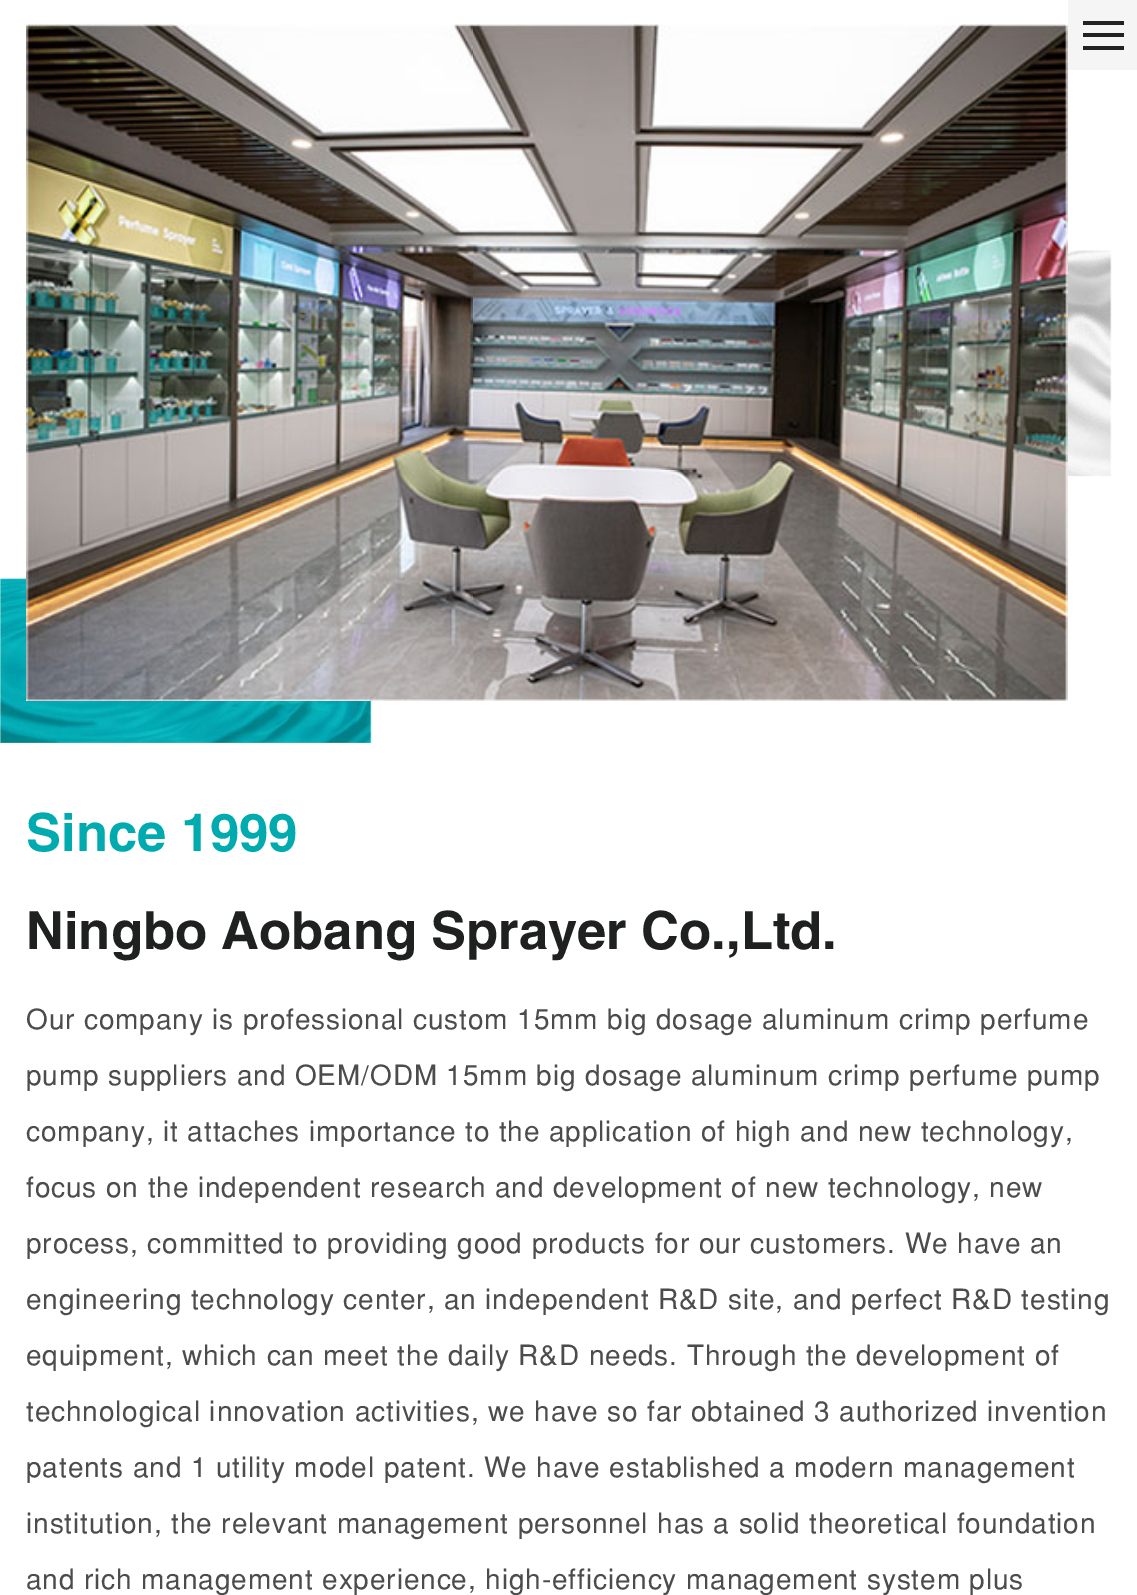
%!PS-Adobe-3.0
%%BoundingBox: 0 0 1137 1595
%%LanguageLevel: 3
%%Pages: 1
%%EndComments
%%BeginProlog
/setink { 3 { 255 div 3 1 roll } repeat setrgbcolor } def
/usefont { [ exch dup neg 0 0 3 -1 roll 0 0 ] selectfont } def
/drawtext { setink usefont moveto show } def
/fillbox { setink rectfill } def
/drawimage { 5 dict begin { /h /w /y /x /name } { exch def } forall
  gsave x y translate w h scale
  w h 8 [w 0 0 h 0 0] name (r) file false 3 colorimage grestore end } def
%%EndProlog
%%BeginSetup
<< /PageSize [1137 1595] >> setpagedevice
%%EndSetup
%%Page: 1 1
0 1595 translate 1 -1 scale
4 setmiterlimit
0 0 1137 1595 255 255 255 fillbox
1068 0 69 70 245 245 245 fillbox
1083 21 41 4 34 34 34 fillbox
1083 33 41 4 34 34 34 fillbox
1083 46 41 4 34 34 34 fillbox
(assets/img3.rgb) 0 578 372 165 drawimage
(assets/img1.rgb) 26 24 1042 677 drawimage
(assets/img2.rgb) 1068 250 44 227 drawimage
(Since 1999) 26 851 /Helvetica-Bold 52.5 0 171 175 drawtext
(Ningbo Aobang Sprayer Co.,Ltd.) 26 949 /Helvetica-Bold 52.5 31 32 32 drawtext
/Helvetica-Medium 28 usefont
76 76 76 setink
26 1029 moveto 0.88 0 (Our company is professional custom 15mm big dosage aluminum crimp perfume) ashow
26 1085 moveto 0.88 0 (pump suppliers and OEM/ODM 15mm big dosage aluminum crimp perfume pump) ashow
26 1141 moveto 0.88 0 (company, it attaches importance to the application of high and new technology,) ashow
26 1197 moveto 0.88 0 (focus on the independent research and development of new technology, new) ashow
26 1253 moveto 0.88 0 (process, committed to providing good products for our customers. We have an) ashow
26 1309 moveto 0.88 0 (engineering technology center, an independent R&D site, and perfect R&D testing) ashow
26 1365 moveto 0.88 0 (equipment, which can meet the daily R&D needs. Through the development of) ashow
26 1421 moveto 0.88 0 (technological innovation activities, we have so far obtained 3 authorized invention) ashow
26 1477 moveto 0.88 0 (patents and 1 utility model patent. We have established a modern management) ashow
26 1533 moveto 0.88 0 (institution, the relevant management personnel has a solid theoretical foundation) ashow
26 1589 moveto 0.88 0 (and rich management experience, high-efficiency management system plus) ashow
showpage
%%EOF
